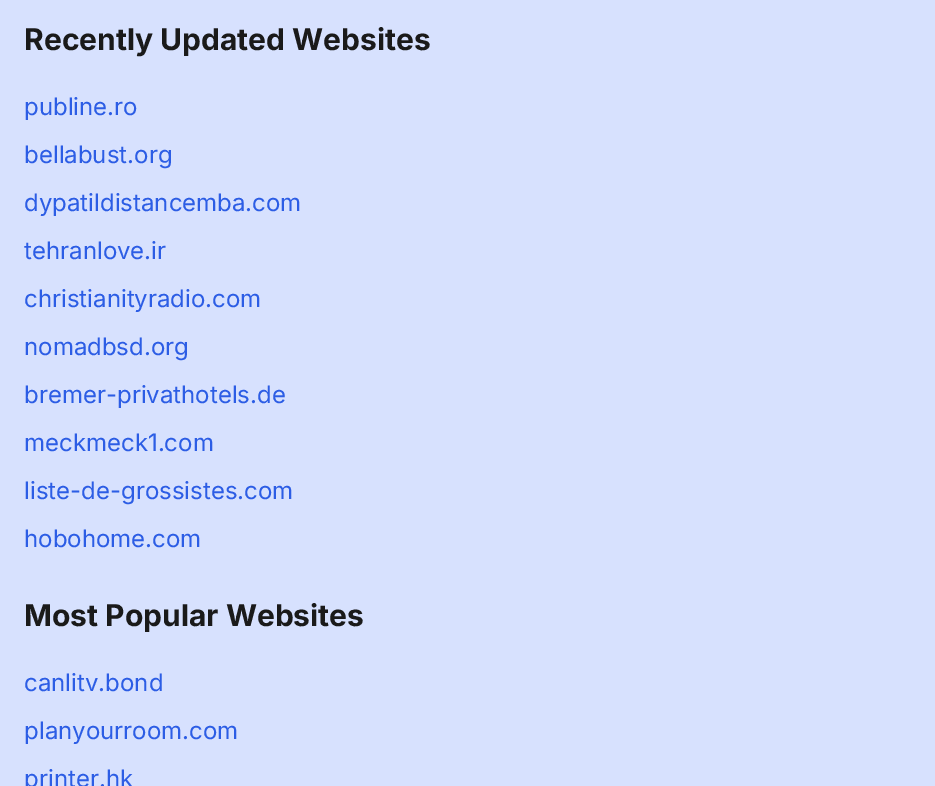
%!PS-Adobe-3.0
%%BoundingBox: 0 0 935 786
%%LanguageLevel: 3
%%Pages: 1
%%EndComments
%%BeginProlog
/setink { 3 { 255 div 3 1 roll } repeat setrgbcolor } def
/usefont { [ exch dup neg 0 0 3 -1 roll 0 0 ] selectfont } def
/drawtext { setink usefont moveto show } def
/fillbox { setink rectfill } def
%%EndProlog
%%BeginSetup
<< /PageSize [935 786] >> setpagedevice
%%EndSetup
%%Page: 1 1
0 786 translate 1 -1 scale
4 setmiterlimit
0 0 935 786 215 225 254 fillbox
(Recently Updated Websites) 24 50 /Inter-Bold 30 26 26 26 drawtext
(publine.ro) 24 115 /Inter-Regular 24 44 93 229 drawtext
(bellabust.org) 24 163 /Inter-Regular 24 44 93 229 drawtext
(dypatildistancemba.com) 24 211 /Inter-Regular 24 44 93 229 drawtext
(tehranlove.ir) 24 259 /Inter-Regular 24 44 93 229 drawtext
(christianityradio.com) 24 307 /Inter-Regular 24 44 93 229 drawtext
(nomadbsd.org) 24 355 /Inter-Regular 24 44 93 229 drawtext
(bremer-privathotels.de) 24 403 /Inter-Regular 24 44 93 229 drawtext
(meckmeck1.com) 24 451 /Inter-Regular 24 44 93 229 drawtext
(liste-de-grossistes.com) 24 499 /Inter-Regular 24 44 93 229 drawtext
(hobohome.com) 24 547 /Inter-Regular 24 44 93 229 drawtext
(Most Popular Websites) 24 626 /Inter-Bold 30 26 26 26 drawtext
(canlitv.bond) 24 691 /Inter-Regular 24 44 93 229 drawtext
(planyourroom.com) 24 739 /Inter-Regular 24 44 93 229 drawtext
(printer.hk) 24 787 /Inter-Regular 24 44 93 229 drawtext
showpage
%%EOF
